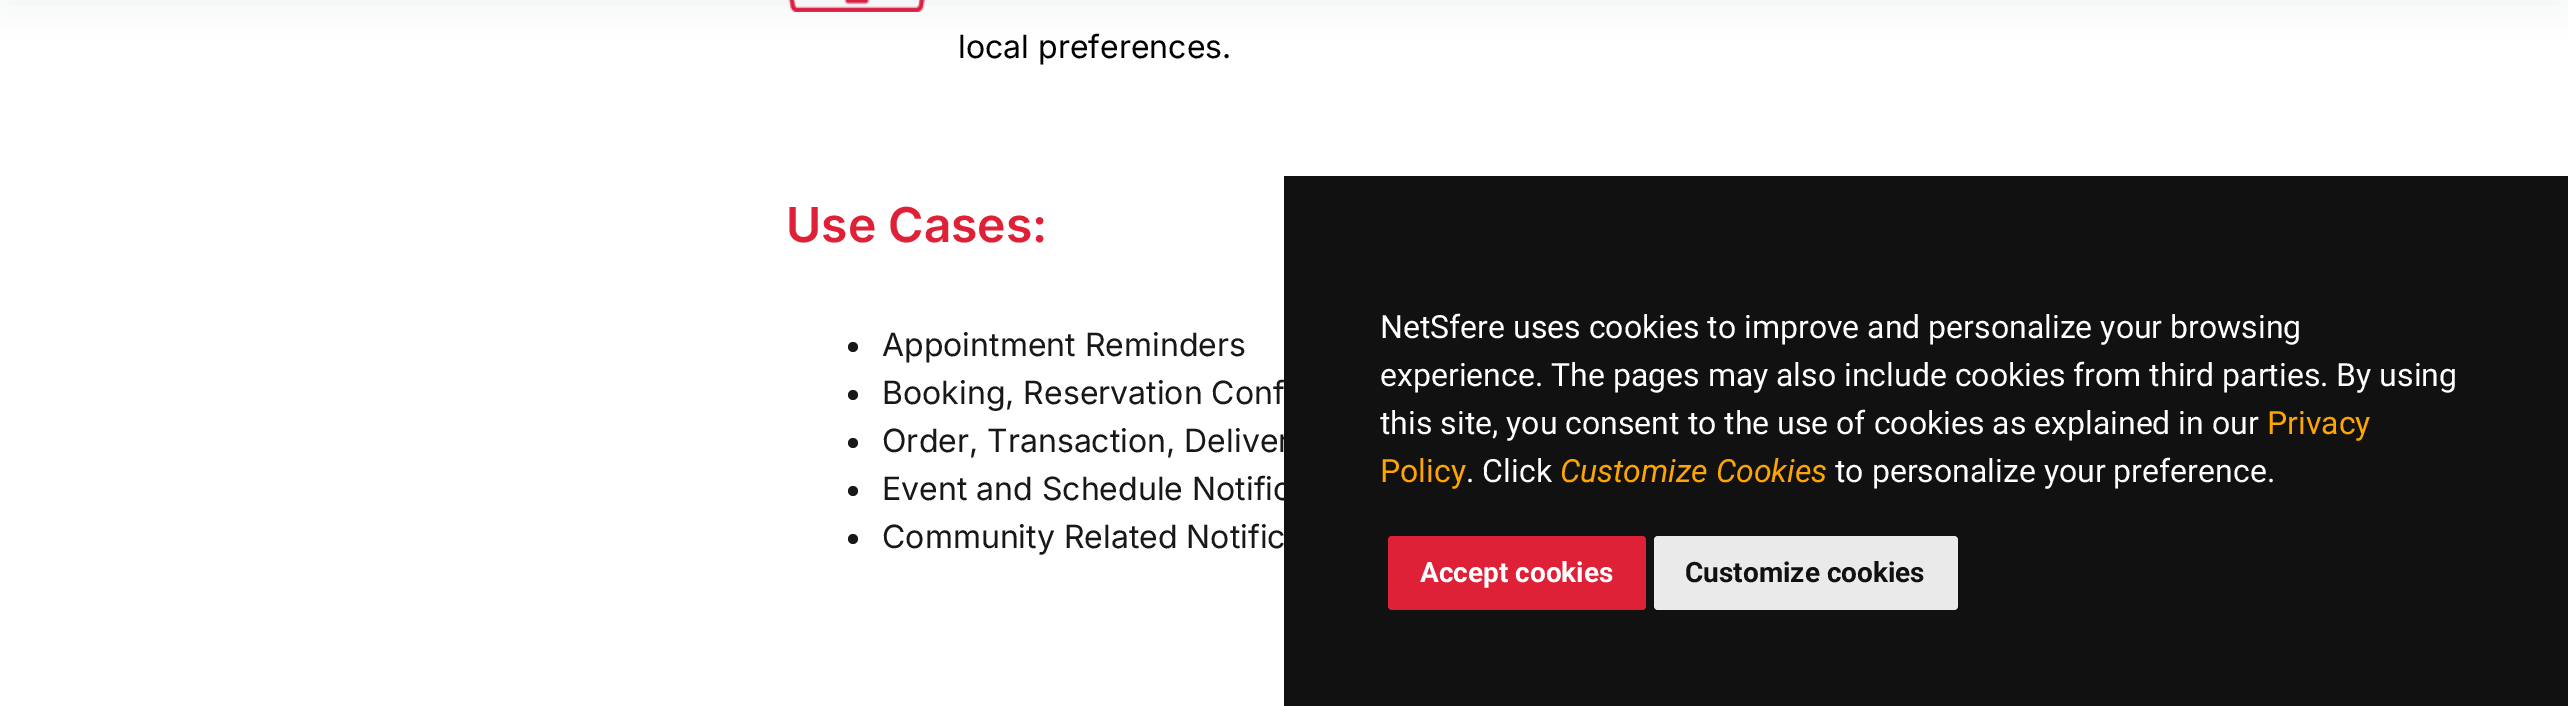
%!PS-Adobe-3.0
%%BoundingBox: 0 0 2568 706
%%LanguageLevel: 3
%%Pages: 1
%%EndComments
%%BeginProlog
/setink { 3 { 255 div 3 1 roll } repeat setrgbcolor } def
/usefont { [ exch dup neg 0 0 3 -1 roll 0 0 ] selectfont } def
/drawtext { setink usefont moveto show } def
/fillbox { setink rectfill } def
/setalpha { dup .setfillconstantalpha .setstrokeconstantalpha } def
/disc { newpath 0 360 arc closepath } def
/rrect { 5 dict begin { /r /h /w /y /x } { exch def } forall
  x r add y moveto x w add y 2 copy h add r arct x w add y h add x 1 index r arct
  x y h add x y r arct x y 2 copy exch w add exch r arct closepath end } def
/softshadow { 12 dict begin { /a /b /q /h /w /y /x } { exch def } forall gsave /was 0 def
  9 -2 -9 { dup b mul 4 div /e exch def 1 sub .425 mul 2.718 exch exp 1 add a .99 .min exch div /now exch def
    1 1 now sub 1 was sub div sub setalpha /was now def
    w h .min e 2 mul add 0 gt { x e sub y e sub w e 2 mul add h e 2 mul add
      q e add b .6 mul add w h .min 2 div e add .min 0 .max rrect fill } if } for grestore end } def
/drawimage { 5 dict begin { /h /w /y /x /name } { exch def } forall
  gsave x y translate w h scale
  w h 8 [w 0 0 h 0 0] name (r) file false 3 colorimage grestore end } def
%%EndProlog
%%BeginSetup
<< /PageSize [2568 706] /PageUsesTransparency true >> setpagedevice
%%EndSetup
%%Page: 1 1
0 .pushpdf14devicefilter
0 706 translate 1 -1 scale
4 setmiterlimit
0 0 2568 706 255 255 255 fillbox
(assets/img1.rgb) 788 0 137 12 drawimage
140 152 164 setink
0 -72 2568 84 0 24 0.12 softshadow
(local preferences.) 958 58 /Inter-Regular 32 0 0 0 drawtext
(Use Cases:) 786 242 /Inter-SemiBold 48 222 33 55 drawtext
24 24 24 setink
853 347 5 disc fill
(Appointment Reminders) 882 356 /Inter-Regular 32 24 24 24 drawtext
853 395 5 disc fill
(Booking, Reservation Conf) 882 404 /Inter-Regular 32 24 24 24 drawtext
853 443 5 disc fill
(Order, Transaction, Deliver) 882 452 /Inter-Regular 32 24 24 24 drawtext
853 491 5 disc fill
(Event and Schedule Notific) 882 500 /Inter-Regular 32 24 24 24 drawtext
853 539 5 disc fill
(Community Related Notific) 882 548 /Inter-Regular 32 24 24 24 drawtext
1284 176 1284 530 17 17 17 fillbox
(NetSfere uses cookies to improve and personalize your browsing) 1380 338 /Roboto-Regular 32 255 255 255 drawtext
(experience. The pages may also include cookies from third parties. By using) 1380 386 /Roboto-Regular 32 255 255 255 drawtext
(this site, you consent to the use of cookies as explained in our) 1380 434 /Roboto-Regular 32 255 255 255 drawtext
(Privacy) 2267 434 /Roboto-Regular 32 255 165 0 drawtext
(Policy) 1380 482 /Roboto-Regular 32 255 165 0 drawtext
(. Click) 1466 482 /Roboto-Regular 32 255 255 255 drawtext
(Customize Cookies) 1560 482 /Roboto-Italic 32 255 165 0 drawtext
(to personalize your preference.) 1835 482 /Roboto-Regular 32 255 255 255 drawtext
222 33 55 setink
1388 536 258 74 4 rrect fill
(Accept cookies) 1420 582 /Roboto-Bold 28 255 255 255 drawtext
234 234 234 setink
1654 536 304 74 4 rrect fill
(Customize cookies) 1685 582 /Roboto-Bold 28 17 17 17 drawtext
.poppdf14devicefilter showpage
%%EOF
